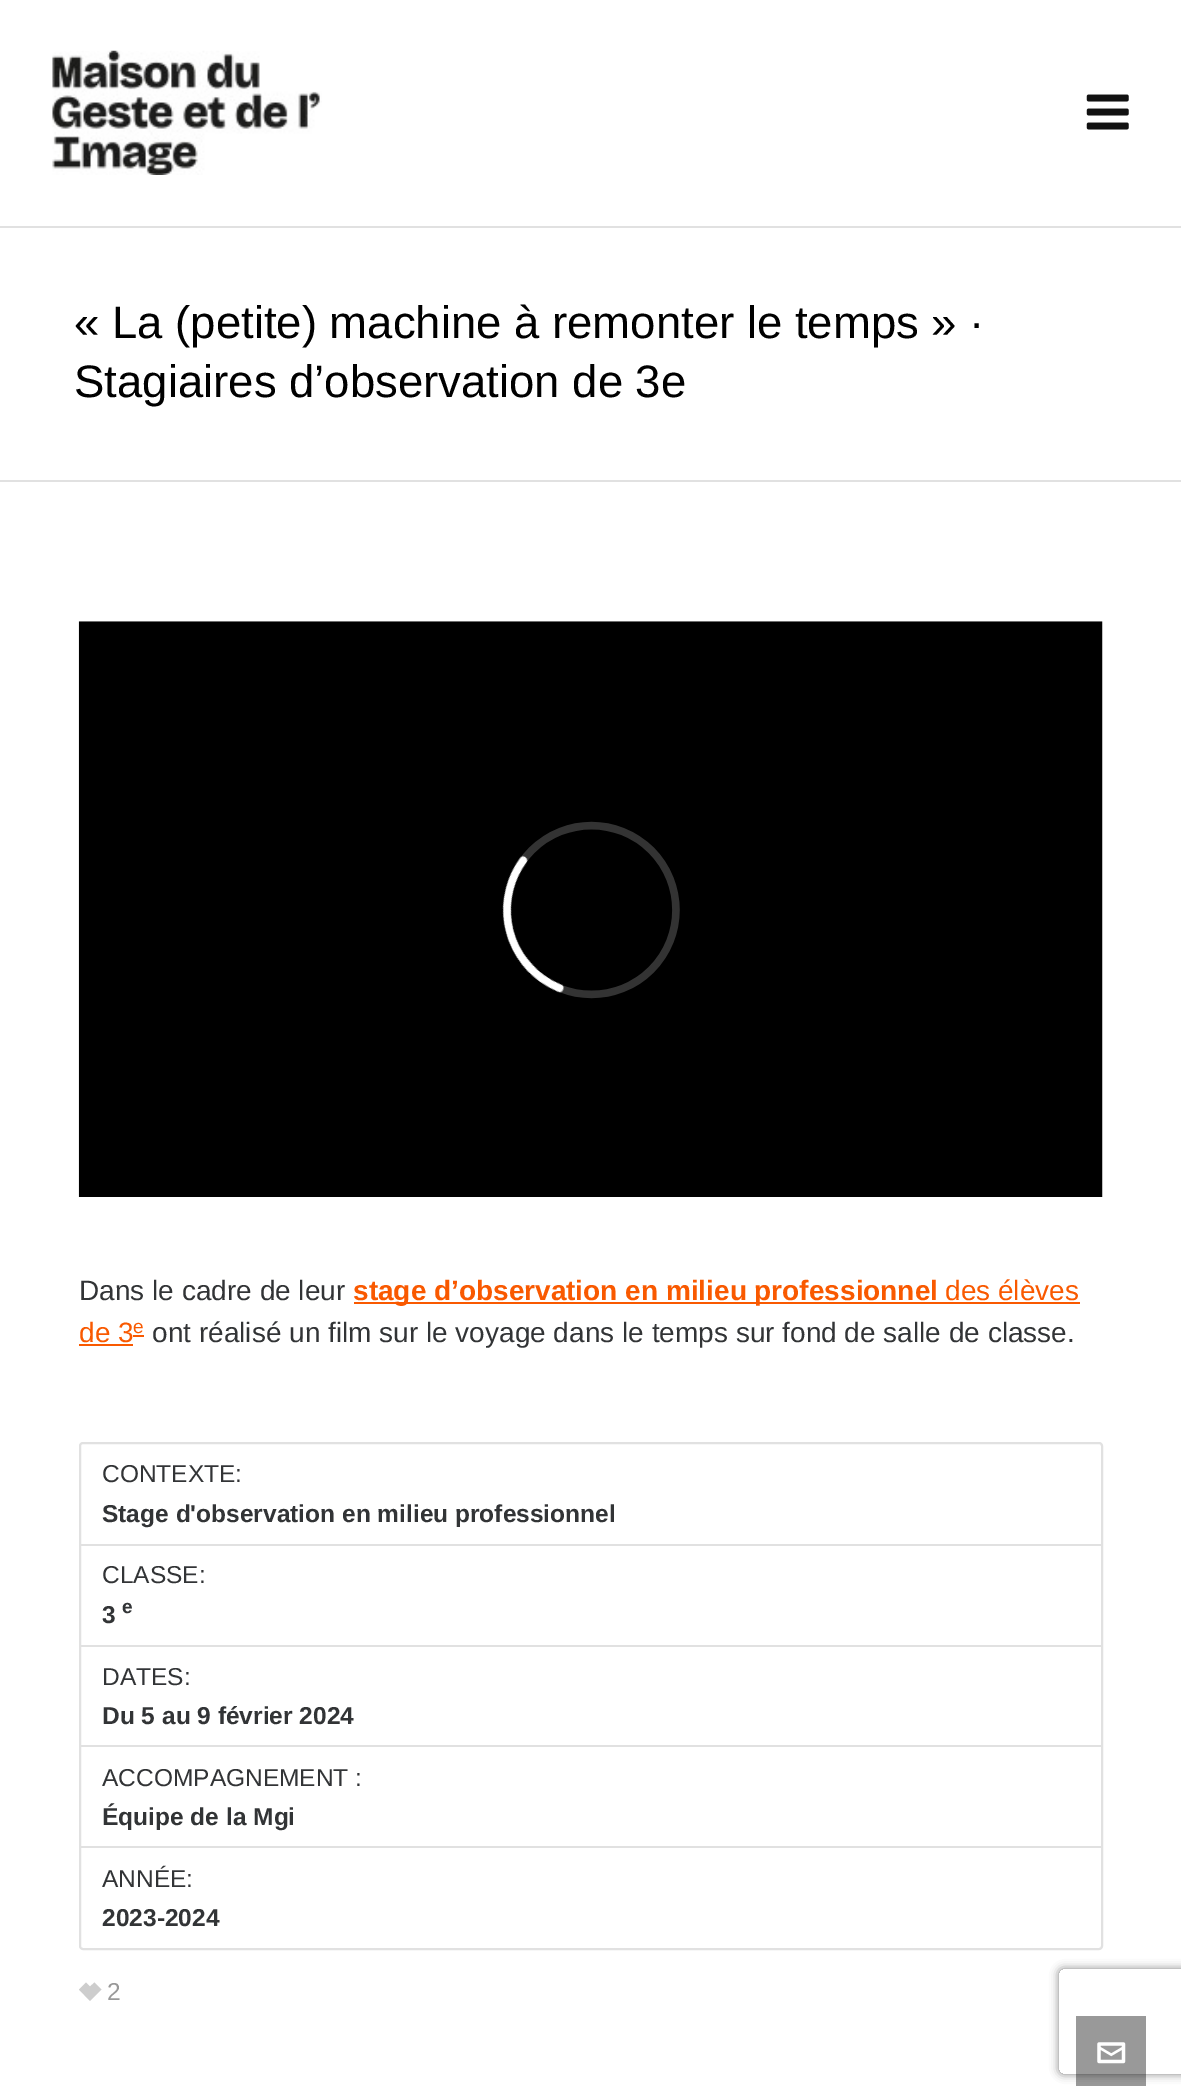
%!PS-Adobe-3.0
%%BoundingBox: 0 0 1181 2098
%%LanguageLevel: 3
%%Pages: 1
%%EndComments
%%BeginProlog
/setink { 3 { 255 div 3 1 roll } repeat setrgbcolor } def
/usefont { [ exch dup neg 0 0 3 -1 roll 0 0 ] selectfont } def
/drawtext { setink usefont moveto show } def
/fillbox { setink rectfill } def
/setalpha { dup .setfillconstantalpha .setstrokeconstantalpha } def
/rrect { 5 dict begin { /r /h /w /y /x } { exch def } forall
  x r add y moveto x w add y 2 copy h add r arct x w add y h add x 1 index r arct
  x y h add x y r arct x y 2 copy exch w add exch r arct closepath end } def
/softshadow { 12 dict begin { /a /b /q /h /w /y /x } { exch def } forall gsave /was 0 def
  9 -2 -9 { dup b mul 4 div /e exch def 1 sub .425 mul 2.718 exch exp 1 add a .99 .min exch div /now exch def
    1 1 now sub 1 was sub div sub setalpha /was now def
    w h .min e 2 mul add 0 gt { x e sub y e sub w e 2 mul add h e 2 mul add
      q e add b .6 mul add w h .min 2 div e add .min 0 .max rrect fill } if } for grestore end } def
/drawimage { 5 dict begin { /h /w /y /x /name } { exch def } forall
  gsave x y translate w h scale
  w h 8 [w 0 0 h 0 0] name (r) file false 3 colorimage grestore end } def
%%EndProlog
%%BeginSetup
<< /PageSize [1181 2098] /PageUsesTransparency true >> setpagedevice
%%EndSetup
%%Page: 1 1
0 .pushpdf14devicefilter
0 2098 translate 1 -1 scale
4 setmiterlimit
0 0 1181 2098 255 255 255 fillbox
0 226 1181 2 225 225 225 fillbox
(assets/img1.rgb) 52 50 270 125 drawimage
(assets/img2.rgb) 1086 94 43 36 drawimage
0 480 1181 2 225 225 225 fillbox
(« La \(petite\) machine à remonter le temps » ·) 74 338 /LiberationSans-Regular 45.5 0 0 0 drawtext
(Stagiaires d’observation de 3e) 74 397 /LiberationSans-Regular 45.5 0 0 0 drawtext
(assets/img3.rgb) 78 621 1025 576 drawimage
(Dans le cadre de leur) 79 1300 /LiberationSans-Regular 28 50 52 54 drawtext
354 1302 726 2 249 89 0 fillbox
(stage d’observation en milieu professionnel) 353 1300 /LiberationSans-Bold 28 249 89 0 drawtext
(des élèves) 945 1300 /LiberationSans-Regular 28 249 89 0 drawtext
(de 3) 79 1342 /LiberationSans-Regular 28 249 89 0 drawtext
79 1344 54 2 249 89 0 fillbox
133 1335 11 2 249 89 0 fillbox
(e) 133 1333 /LiberationSans-Regular 19 249 89 0 drawtext
(ont réalisé un film sur le voyage dans le temps sur fond de salle de classe.) 152 1342 /LiberationSans-Regular 28 50 52 54 drawtext
225 225 225 setink
2 setlinewidth
80 1443 1022 506 3 rrect stroke
81 1544 1020 2 225 225 225 fillbox
(CONTEXTE:) 102 1482 /LiberationSans-Regular 24.5 50 52 54 drawtext
(Stage d'observation en milieu professionnel) 102 1522 /LiberationSans-Bold 24.5 50 52 54 drawtext
81 1645 1020 2 225 225 225 fillbox
(CLASSE:) 102 1583 /LiberationSans-Regular 24.5 50 52 54 drawtext
(3) 102 1623 /LiberationSans-Bold 24.5 50 52 54 drawtext
(e) 122 1613 /LiberationSans-Bold 19 50 52 54 drawtext
81 1745 1020 2 225 225 225 fillbox
(DATES:) 102 1685 /LiberationSans-Regular 24.5 50 52 54 drawtext
(Du 5 au 9 février 2024) 102 1724 /LiberationSans-Bold 24.5 50 52 54 drawtext
81 1846 1020 2 225 225 225 fillbox
(ACCOMPAGNEMENT :) 102 1786 /LiberationSans-Regular 24.5 50 52 54 drawtext
(Équipe de la Mgi) 102 1825 /LiberationSans-Bold 24.5 50 52 54 drawtext
(ANNÉE:) 102 1887 /LiberationSans-Regular 24.5 50 52 54 drawtext
(2023-2024) 102 1926 /LiberationSans-Bold 24.5 50 52 54 drawtext
205 205 205 setink
94.5 1982.5 moveto 101.5 1989.5 lineto 90 2001 lineto 79 1989.5 lineto 86 1982.5 lineto 90 1986.5 lineto closepath fill
(2) 107 2000 /LiberationSans-Regular 24.5 153 153 153 drawtext
gsave
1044 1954 moveto 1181 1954 lineto 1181 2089 lineto 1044 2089 lineto closepath 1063 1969 moveto 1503 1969 lineto 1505 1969 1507 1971 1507 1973 curveto 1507 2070 lineto 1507 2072 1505 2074 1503 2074 curveto 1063 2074 lineto 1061 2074 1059 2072 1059 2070 curveto 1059 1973 lineto 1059 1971 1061 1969 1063 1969 curveto closepath eoclip newpath
128 128 128 setink
1059 1969 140 105 4 4.5 1 softshadow
grestore
0.4 setalpha
1076 2016 70 70 0 0 0 fillbox
1 setalpha
(assets/img4.rgb) 1097 2042 29 22 drawimage
.poppdf14devicefilter showpage
%%EOF
